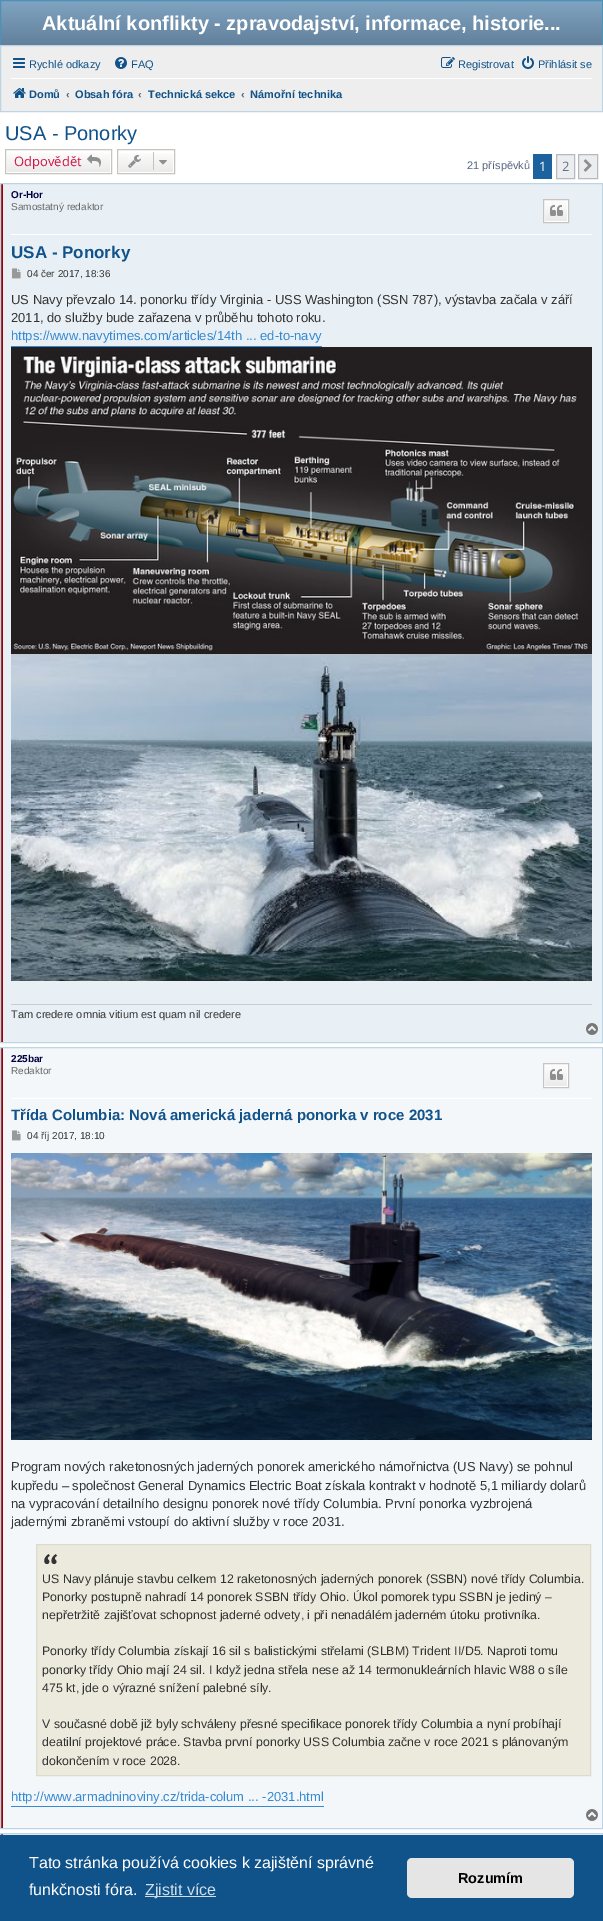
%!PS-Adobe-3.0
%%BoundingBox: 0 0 603 1921
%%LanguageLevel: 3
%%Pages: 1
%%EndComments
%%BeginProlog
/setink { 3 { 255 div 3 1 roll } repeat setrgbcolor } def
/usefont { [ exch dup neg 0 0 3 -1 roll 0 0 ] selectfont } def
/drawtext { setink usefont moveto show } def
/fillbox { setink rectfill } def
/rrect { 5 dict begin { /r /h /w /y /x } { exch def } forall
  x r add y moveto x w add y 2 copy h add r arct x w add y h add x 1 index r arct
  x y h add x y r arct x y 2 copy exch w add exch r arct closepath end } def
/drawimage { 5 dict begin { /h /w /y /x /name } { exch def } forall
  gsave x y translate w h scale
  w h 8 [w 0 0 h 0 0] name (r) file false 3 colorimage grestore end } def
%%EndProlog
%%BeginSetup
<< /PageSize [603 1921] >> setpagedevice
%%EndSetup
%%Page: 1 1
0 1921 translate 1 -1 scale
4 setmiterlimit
0 0 603 1921 255 255 255 fillbox
gsave 1 1 moveto 602 1 lineto 602 45 lineto 1 45 lineto closepath clip newpath
<< /ShadingType 2 /ColorSpace /DeviceRGB /Coords [302 1 302 93] /Extend [true true] /Function << /FunctionType 3 /Domain [0 1] /Functions [<< /FunctionType 2 /Domain [0 1] /C0 [0.494 0.635 0.749] /C1 [0.494 0.635 0.749] /N 1 >> << /FunctionType 2 /Domain [0 1] /C0 [0.494 0.635 0.749] /C1 [0.259 0.353 0.459] /N 1 >>] /Bounds [0.02] /Encode [0 1 0 1] >> >> shfill grestore
79 145 182 setink
0.5 0.5 602 45 rectstroke
(Aktuální konflikty - zpravodajství, informace, historie...) 42 30 /LiberationSans-Bold 20 255 255 255 drawtext
238 238 238 setink
0.5 45.5 moveto 602.5 45.5 lineto 602.5 111.5 lineto 0.5 111.5 lineto closepath gsave fill grestore
188 212 227 setink
stroke
(assets/img1.rgb) 13 58 12 10 drawimage
(Rychlé odkazy) 29 68 /LiberationSans-Regular 11 16 82 137 drawtext
(assets/img2.rgb) 115 57 12 12 drawimage
(FAQ) 131 68 /LiberationSans-Regular 11 16 82 137 drawtext
(assets/img3.rgb) 441 57 14 11 drawimage
(Registrovat) 458 68 /LiberationSans-Regular 11 16 82 137 drawtext
(assets/img4.rgb) 522 56 12 13 drawimage
(Přihlásit se) 538 68 /LiberationSans-Regular 11 16 82 137 drawtext
11 78 581 1 255 255 255 fillbox
(assets/img5.rgb) 13 88 13 10 drawimage
(Domů) 29 98 /LiberationSans-Bold 11 16 82 137 drawtext
(‹) 66 98 /LiberationSans-Bold 11 83 100 130 drawtext
(Obsah fóra) 75 98 /LiberationSans-Bold 11 16 82 137 drawtext
(‹) 138 98 /LiberationSans-Bold 11 83 100 130 drawtext
(Technická sekce) 148 98 /LiberationSans-Bold 11 16 82 137 drawtext
(‹) 241 98 /LiberationSans-Bold 11 83 100 130 drawtext
(Námořní technika) 250 98 /LiberationSans-Bold 11 16 82 137 drawtext
(USA - Ponorky) 5 140 /LiberationSans-Regular 20 16 82 137 drawtext
gsave 7 153 moveto 110 153 lineto 110 172 lineto 7 172 lineto closepath clip newpath
<< /ShadingType 2 /ColorSpace /DeviceRGB /Coords [59 150 59 173] /Extend [true true] /Function << /FunctionType 2 /Domain [0 1] /C0 [1 1 1] /C1 [0.914 0.914 0.914] /N 1 >> >> shfill grestore
199 195 191 setink
5.5 149.5 106 24 rectstroke
(Odpovědět) 14 166 /OpenSans-Regular 13 211 17 65 drawtext
(assets/img6.rgb) 87 154 14 13 drawimage
gsave 119 153 moveto 173 153 lineto 173 172 lineto 119 172 lineto closepath clip newpath
<< /ShadingType 2 /ColorSpace /DeviceRGB /Coords [146 150 146 173] /Extend [true true] /Function << /FunctionType 2 /Domain [0 1] /C0 [1 1 1] /C1 [0.914 0.914 0.914] /N 1 >> >> shfill grestore
199 195 191 setink
117.5 149.5 57 24 rectstroke
(assets/img7.rgb) 128 155 13 13 drawimage
153 152 1 18 199 195 191 fillbox
(assets/img8.rgb) 159 160 8 5 drawimage
(21 příspěvků) 467 169 /LiberationSans-Regular 11 83 100 130 drawtext
533 154 19 25 27 98 158 fillbox
(1) 539 171 /OpenSans-Regular 13 255 255 255 drawtext
236 237 238 setink
556.5 154.5 moveto 574.5 154.5 lineto 574.5 178.5 lineto 556.5 178.5 lineto closepath gsave fill grestore
180 186 192 setink
stroke
(2) 562 171 /OpenSans-Regular 13 92 117 140 drawtext
236 237 238 setink
578.5 154.5 moveto 597.5 154.5 lineto 597.5 178.5 lineto 578.5 178.5 lineto closepath gsave fill grestore
180 186 192 setink
stroke
(assets/img9.rgb) 583 159 9 13 drawimage
3 184 599 858 233 240 245 fillbox
1 183 2 860 156 0 3 fillbox
188 212 227 setink
0.5 183.5 602 859 rectstroke
11 234 581 1 255 255 255 fillbox
(Or-Hor) 11 198 /LiberationSans-Bold 10 0 0 64 drawtext
(Samostatný redaktor) 11 210 /LiberationSans-Regular 10 102 102 102 drawtext
gsave 545 201 moveto 567 201 lineto 567 221 lineto 545 221 lineto closepath clip newpath
<< /ShadingType 2 /ColorSpace /DeviceRGB /Coords [556 200 556 222] /Extend [true true] /Function << /FunctionType 2 /Domain [0 1] /C0 [1 1 1] /C1 [0.914 0.914 0.914] /N 1 >> >> shfill grestore
255 255 255 setink
544.5 200.5 23 21 rectstroke
199 195 191 setink
543.5 199.5 25 23 rectstroke
(assets/img10.rgb) 550 205 13 11 drawimage
(USA - Ponorky) 11 258 /LiberationSans-Bold 17 16 82 137 drawtext
(assets/img11.rgb) 12 268 9 11 drawimage
(04 čer 2017, 18:36) 27 277 /LiberationSans-Regular 10 51 51 51 drawtext
(US Navy převzalo 14. ponorku třídy Virginia - USS Washington \(SSN 787\), výstavba začala v září) 11 304 /LiberationSans-Regular 13 51 51 51 drawtext
(2011, do služby bude zařazena v průběhu tohoto roku.) 11 322 /LiberationSans-Regular 13 51 51 51 drawtext
11 346 311 1 54 138 210 fillbox
(https://www.navytimes.com/articles/14th ... ed-to-navy) 11 340 /LiberationSans-Regular 13 54 138 210 drawtext
(assets/img12.rgb) 11 347 581 307 drawimage
(assets/img13.rgb) 11 654 581 327 drawimage
11 1004 581 1 204 204 204 fillbox
(Tam credere omnia vitium est quam nil credere) 11 1018 /LiberationSans-Regular 11 51 51 51 drawtext
(assets/img14.rgb) 586 1023 12 12 drawimage
3 1048 599 780 243 247 250 fillbox
1 1047 2 782 156 0 3 fillbox
188 212 227 setink
0.5 1047.5 602 781 rectstroke
11 1098 581 1 255 255 255 fillbox
(225bar) 11 1062 /LiberationSans-Bold 10 0 0 64 drawtext
(Redaktor) 11 1074 /LiberationSans-Regular 10 102 102 102 drawtext
gsave 545 1065 moveto 567 1065 lineto 567 1086 lineto 545 1086 lineto closepath clip newpath
<< /ShadingType 2 /ColorSpace /DeviceRGB /Coords [556 1064 556 1087] /Extend [true true] /Function << /FunctionType 2 /Domain [0 1] /C0 [1 1 1] /C1 [0.914 0.914 0.914] /N 1 >> >> shfill grestore
255 255 255 setink
544.5 1064.5 23 22 rectstroke
199 195 191 setink
543.5 1063.5 25 24 rectstroke
(assets/img10.rgb) 550 1069 13 11 drawimage
(Třída Columbia: Nová americká jaderná ponorka v roce 2031) 11 1120 /LiberationSans-Bold 15 16 82 137 drawtext
(assets/img15.rgb) 12 1130 9 11 drawimage
(04 říj 2017, 18:10) 27 1139 /LiberationSans-Regular 10 51 51 51 drawtext
(assets/img16.rgb) 11 1153 581 287 drawimage
(Program nových raketonosných jaderných ponorek amerického námořnictva \(US Navy\) se pohnul) 11 1471 /LiberationSans-Regular 13 51 51 51 drawtext
(kupředu – společnost General Dynamics Electric Boat získala kontrakt v hodnotě 5,1 miliardy dolarů) 11 1490 /LiberationSans-Regular 13 51 51 51 drawtext
(na vypracování detailního designu ponorek nové třídy Columbia. První ponorka vyzbrojená) 11 1508 /LiberationSans-Regular 13 51 51 51 drawtext
(jadernými zbraněmi vstoupí do aktivní služby v roce 2031.) 11 1526 /LiberationSans-Regular 13 51 51 51 drawtext
37 1545 553 230 235 234 221 fillbox
(assets/img17.rgb) 44 1554 14 10 drawimage
219 219 206 setink
36.5 1544.5 554 231 rectstroke
(US Navy plánuje stavbu celkem 12 raketonosných jaderných ponorek \(SSBN\) nové třídy Columbia.) 42 1583 /LiberationSans-Regular 12.35 51 51 51 drawtext
(Ponorky postupně nahradí 14 ponorek SSBN třídy Ohio. Úkol pomorek typu SSBN je jediný –) 42 1601 /LiberationSans-Regular 12.35 51 51 51 drawtext
(nepřetržitě zajišťovat schopnost jaderné odvety, i při nenadálém jaderném útoku protivníka.) 42 1619 /LiberationSans-Regular 12.35 51 51 51 drawtext
(Ponorky třídy Columbia získají 16 sil s balistickými střelami \(SLBM\) Trident II/D5. Naproti tomu) 42 1655 /LiberationSans-Regular 12.35 51 51 51 drawtext
(ponorky třídy Ohio mají 24 sil. I když jedna střela nese až 14 termonukleárních hlavic W88 o síle) 42 1674 /LiberationSans-Regular 12.35 51 51 51 drawtext
(475 kt, jde o výrazné snížení palebné síly.) 42 1692 /LiberationSans-Regular 12.35 51 51 51 drawtext
(V současné době již byly schváleny přesné specifikace ponorek třídy Columbia a nyní probíhají) 42 1728 /LiberationSans-Regular 12.35 51 51 51 drawtext
(deatilní projektové práce. Stavba první ponorky USS Columbia začne v roce 2021 s plánovaným) 42 1746 /LiberationSans-Regular 12.35 51 51 51 drawtext
(dokončením v roce 2028.) 42 1765 /LiberationSans-Regular 12.35 51 51 51 drawtext
11 1806 313 1 54 138 210 fillbox
(http://www.armadninoviny.cz/trida-colum ... -2031.html) 11 1801 /LiberationSans-Regular 13 54 138 210 drawtext
(assets/img18.rgb) 586 1809 12 12 drawimage
3 1834 599 1 233 240 245 fillbox
1 1833 2 2 156 0 3 fillbox
188 212 227 setink
0.5 1833.5 602 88 rectstroke
0 1835 603 86 15 83 138 fillbox
(Tato stránka používá cookies k zajištění správné) 29 1868 /LiberationSans-Regular 16 255 255 255 drawtext
(funkčnosti fóra.) 29 1895 /LiberationSans-Regular 16 255 255 255 drawtext
145 1896 71 1 207 221 232 fillbox
(Zjistit více) 145 1895 /LiberationSans-Regular 16 207 221 232 drawtext
229 229 229 setink
407 1858 167 40 5 rrect fill
(Rozumím) 458 1883 /LiberationSans-Bold 14.5 0 0 0 drawtext
showpage
%%EOF
